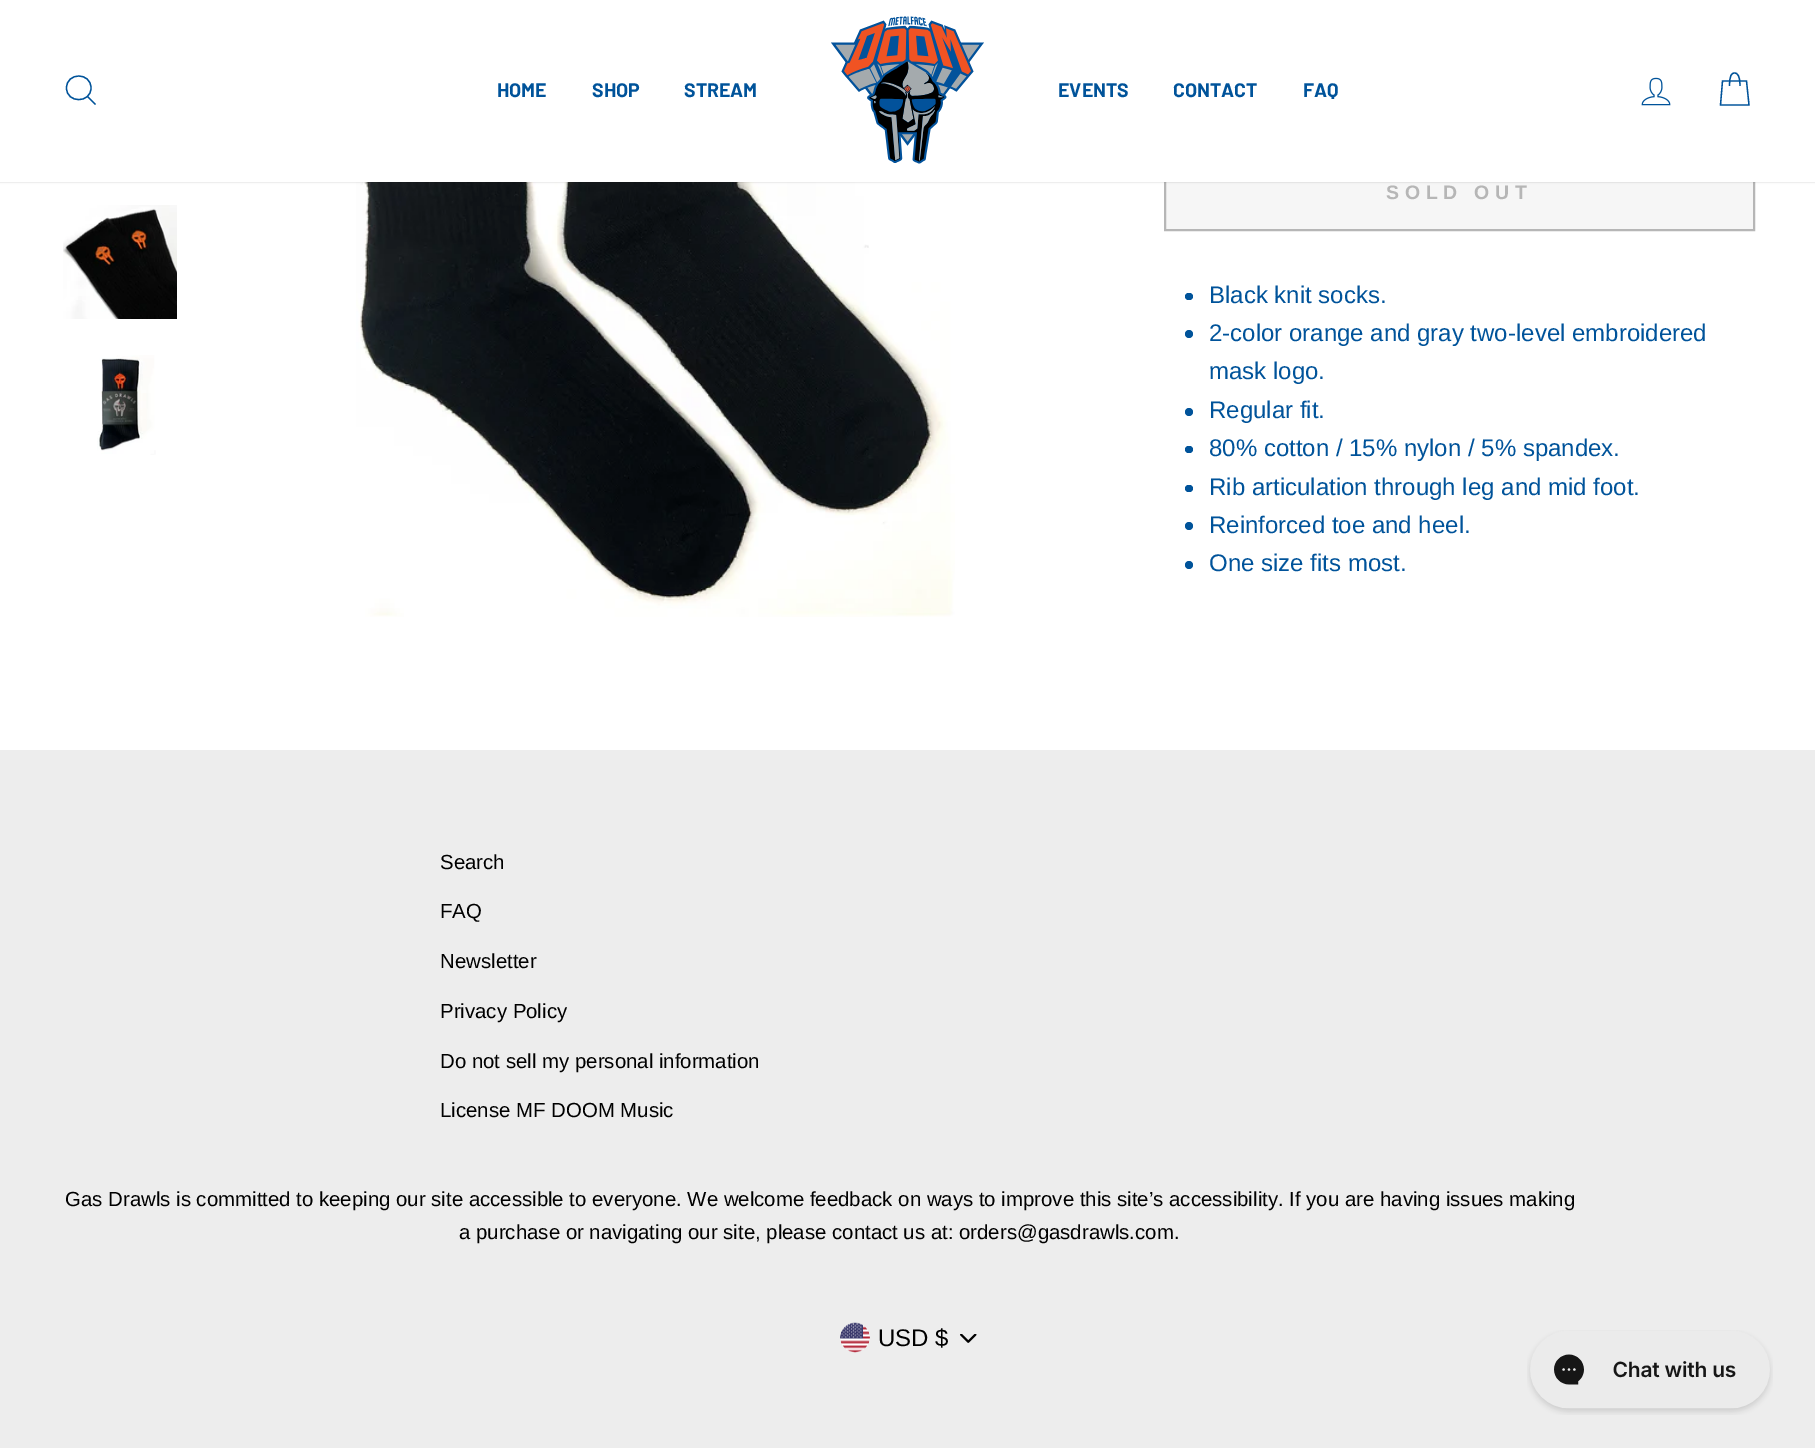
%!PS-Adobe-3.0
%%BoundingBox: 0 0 1815 1448
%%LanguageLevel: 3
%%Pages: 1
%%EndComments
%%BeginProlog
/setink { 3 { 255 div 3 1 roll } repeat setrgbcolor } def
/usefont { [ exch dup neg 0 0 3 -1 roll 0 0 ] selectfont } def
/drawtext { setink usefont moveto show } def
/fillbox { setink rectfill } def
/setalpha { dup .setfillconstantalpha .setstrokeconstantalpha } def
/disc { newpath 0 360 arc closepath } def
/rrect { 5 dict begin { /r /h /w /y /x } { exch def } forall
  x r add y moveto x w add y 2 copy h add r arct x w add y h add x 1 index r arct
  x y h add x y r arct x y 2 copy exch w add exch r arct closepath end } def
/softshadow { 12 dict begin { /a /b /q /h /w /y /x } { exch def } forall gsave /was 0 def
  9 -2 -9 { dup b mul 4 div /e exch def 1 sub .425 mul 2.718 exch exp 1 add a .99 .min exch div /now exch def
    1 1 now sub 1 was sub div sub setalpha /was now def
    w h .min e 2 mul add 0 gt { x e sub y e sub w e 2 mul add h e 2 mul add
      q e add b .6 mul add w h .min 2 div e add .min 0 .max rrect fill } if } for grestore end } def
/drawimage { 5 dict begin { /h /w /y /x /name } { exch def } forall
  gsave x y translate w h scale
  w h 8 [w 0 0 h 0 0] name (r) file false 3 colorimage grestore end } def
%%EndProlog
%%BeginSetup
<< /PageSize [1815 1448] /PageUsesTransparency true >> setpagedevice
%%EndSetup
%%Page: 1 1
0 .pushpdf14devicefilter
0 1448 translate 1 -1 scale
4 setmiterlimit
0 0 1815 1448 255 255 255 fillbox
(assets/img5.rgb) 356 182 599 435 drawimage
1166 182 587 47 246 246 246 fillbox
182 182 182 setink
2 setlinewidth
1165 157 589 73 rectstroke
0 0 0 setink
0 0 1815 182 0 1 0.2 softshadow
0 0 1815 182 255 255 255 fillbox
0 83 154 setink
1.3 setlinewidth
91 88 moveto 91 103.5 66.5 103.5 66.5 88 curveto 66.5 72 91 72 91 88 curveto closepath 95.5 104.5 moveto 87.5 96.5 lineto stroke
(HOME) 497 97 /Barlow-Bold 19.5 0 83 154 drawtext
(SHOP) 592 97 /Barlow-Bold 19.5 0 83 154 drawtext
(STREAM) 684 97 /Barlow-Bold 19.5 0 83 154 drawtext
(assets/img1.rgb) 831 16 153 148 drawimage
(EVENTS) 1058 97 /Barlow-Bold 19.5 0 83 154 drawtext
(CONTACT) 1173 97 /Barlow-Bold 19.5 0 83 154 drawtext
(FAQ) 1303 97 /Barlow-Bold 19.5 0 83 154 drawtext
(assets/img2.rgb) 1641 77 30 29 drawimage
1729.5 86 moveto 1729.5 75.5 1731.5 73 1734.5 73 curveto 1737.5 73 1740 75.5 1740 86 curveto 1722.5 81 moveto 1746.5 81 lineto 1749 105 lineto 1720.5 105 lineto closepath stroke
(assets/img3.rgb) 63 205 114 114 drawimage
(assets/img4.rgb) 97 355 59 100 drawimage
/LiberationSans-Bold 19.5 usefont
182 182 182 setink
1386 199 moveto 5.75 0 (SOLD OUT) ashow
0 83 154 setink
1185 293 8 7 3.5 rrect fill
(Black knit socks.) 1209 303 /LiberationSans-Regular 24 0 83 154 drawtext
1189 334 4 disc fill
(2-color orange and gray two-level embroidered) 1209 341 /LiberationSans-Regular 24 0 83 154 drawtext
(mask logo.) 1209 379 /LiberationSans-Regular 24 0 83 154 drawtext
1189 412 4 disc fill
(Regular fit.) 1209 418 /LiberationSans-Regular 24 0 83 154 drawtext
1185 446 8 7 3.5 rrect fill
(80% cotton / 15% nylon / 5% spandex.) 1209 456 /LiberationSans-Regular 24 0 83 154 drawtext
1185 485 8 7 3.5 rrect fill
(Rib articulation through leg and mid foot.) 1209 495 /LiberationSans-Regular 24 0 83 154 drawtext
1189 526 4 disc fill
(Reinforced toe and heel.) 1209 533 /LiberationSans-Regular 24 0 83 154 drawtext
1189 565 4 disc fill
(One size fits most.) 1209 571 /LiberationSans-Regular 24 0 83 154 drawtext
0 750 1815 698 237 237 237 fillbox
(Search) 440 869 /LiberationSans-Regular 20.4 0 0 0 drawtext
(FAQ) 440 918 /LiberationSans-Regular 20.4 0 0 0 drawtext
(Newsletter) 440 968 /LiberationSans-Regular 20.4 0 0 0 drawtext
(Privacy Policy) 440 1018 /LiberationSans-Regular 20.4 0 0 0 drawtext
(Do not sell my personal information) 440 1068 /LiberationSans-Regular 20.4 0 0 0 drawtext
(License MF DOOM Music) 440 1117 /LiberationSans-Regular 20.4 0 0 0 drawtext
(Gas Drawls is committed to keeping our site accessible to everyone. We welcome feedback on ways to improve this site’s accessibility. If you are having issues making) 65 1206 /LiberationSans-Regular 20.4 0 0 0 drawtext
(a purchase or navigating our site, please contact us at: orders@gasdrawls.com.) 459 1239 /LiberationSans-Regular 20.4 0 0 0 drawtext
(assets/img6.rgb) 960 1334 17 9 drawimage
(assets/img7.rgb) 840 1322 30 31 drawimage
(USD $) 878 1346 /LiberationSans-Regular 24 0 0 0 drawtext
(assets/img8.rgb) 1527 1330 246 85 drawimage
.poppdf14devicefilter showpage
%%EOF
